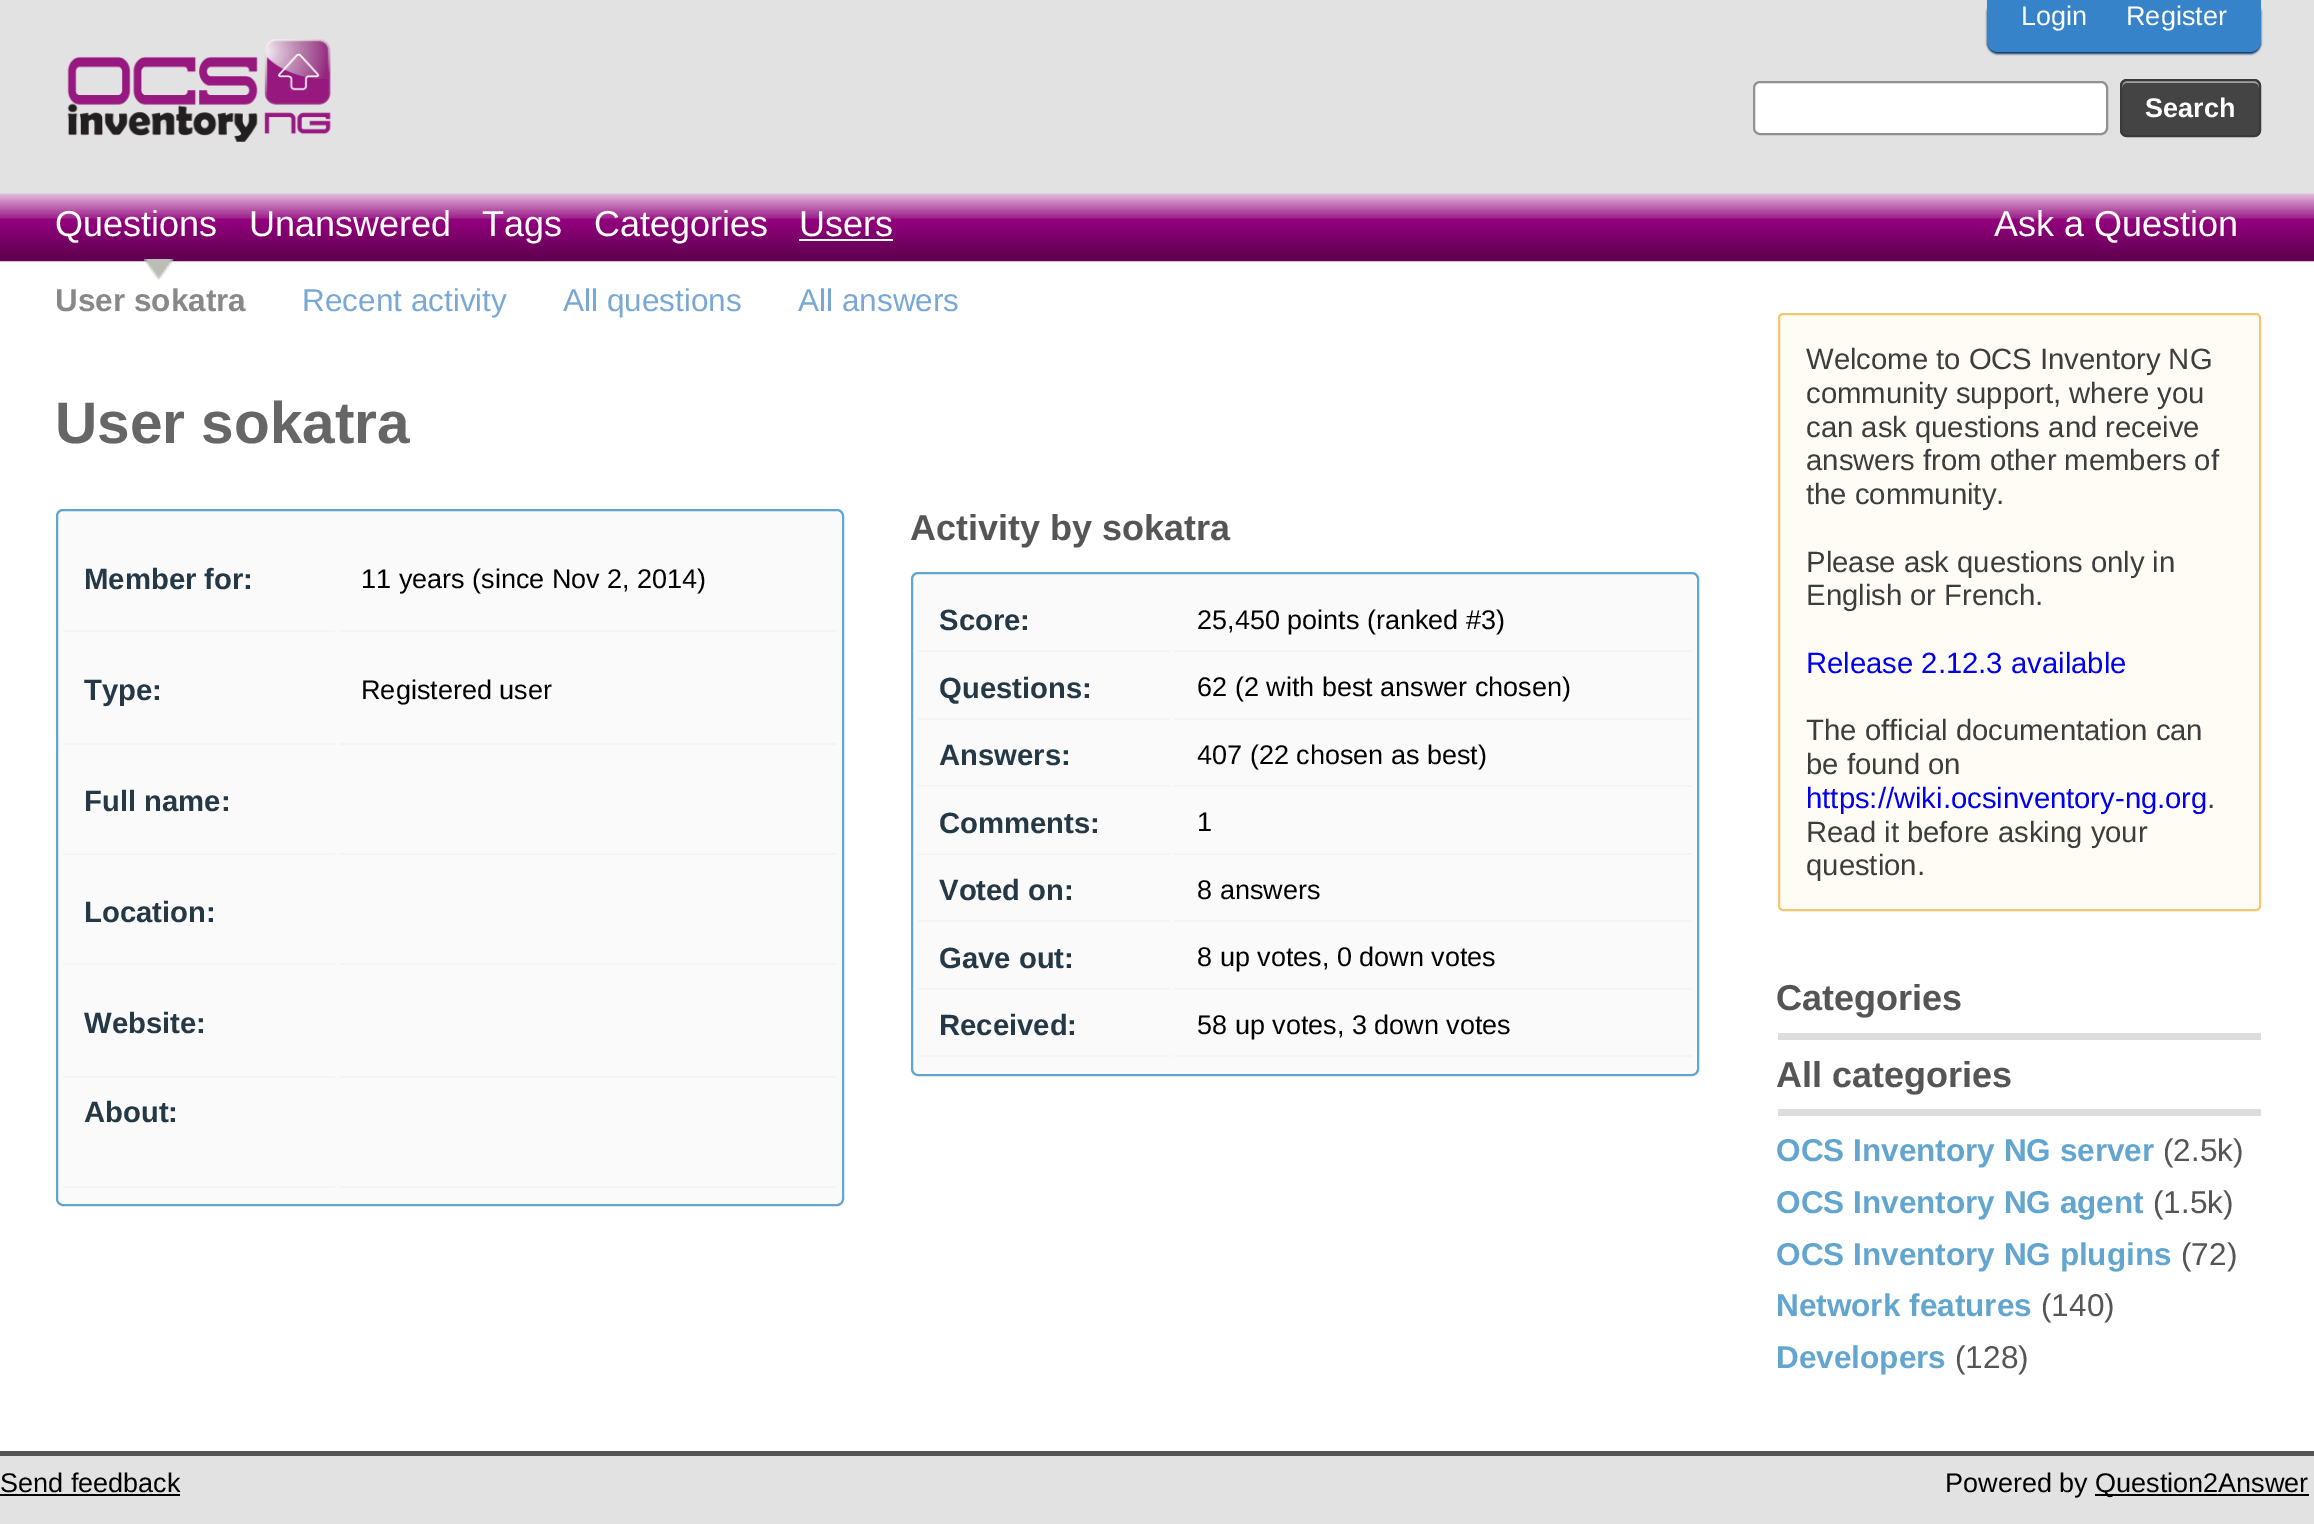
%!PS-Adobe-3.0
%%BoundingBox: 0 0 2314 1524
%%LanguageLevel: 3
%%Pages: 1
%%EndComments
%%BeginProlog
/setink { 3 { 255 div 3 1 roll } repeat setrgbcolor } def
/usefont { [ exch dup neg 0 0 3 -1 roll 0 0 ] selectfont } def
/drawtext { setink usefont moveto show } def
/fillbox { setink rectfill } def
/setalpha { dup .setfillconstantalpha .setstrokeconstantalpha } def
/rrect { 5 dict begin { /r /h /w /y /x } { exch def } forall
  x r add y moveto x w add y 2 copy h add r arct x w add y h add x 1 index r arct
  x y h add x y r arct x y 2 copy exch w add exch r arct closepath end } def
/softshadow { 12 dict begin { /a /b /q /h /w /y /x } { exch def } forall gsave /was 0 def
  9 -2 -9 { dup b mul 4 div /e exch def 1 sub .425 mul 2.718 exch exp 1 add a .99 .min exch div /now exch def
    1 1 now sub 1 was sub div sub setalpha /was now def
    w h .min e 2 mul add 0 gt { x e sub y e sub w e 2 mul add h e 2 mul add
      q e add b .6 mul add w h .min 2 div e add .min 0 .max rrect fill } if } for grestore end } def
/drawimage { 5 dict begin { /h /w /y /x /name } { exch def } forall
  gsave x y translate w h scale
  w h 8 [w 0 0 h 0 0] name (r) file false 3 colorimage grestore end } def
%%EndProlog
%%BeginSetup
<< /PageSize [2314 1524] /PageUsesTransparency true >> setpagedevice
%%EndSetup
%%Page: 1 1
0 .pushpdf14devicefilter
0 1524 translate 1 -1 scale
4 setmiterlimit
0 0 2314 1524 255 255 255 fillbox
(assets/img1.rgb) 0 0 2314 262 drawimage
2 51 98 setink
1987 2 274 52 11 1 1 softshadow
55 131 201 setink
1987 0 moveto 2261 0 lineto 2261 41 lineto 2261 47 2256 52 2250 52 curveto 1998 52 lineto 1992 52 1987 47 1987 41 curveto closepath fill
(Login) 2021 25 /LiberationSans-Regular 27 255 255 255 drawtext
(Register) 2126 25 /LiberationSans-Regular 27 255 255 255 drawtext
(assets/img2.rgb) 67 39 264 103 drawimage
1754 82 353 52 6 rrect gsave fill grestore
145 145 145 setink
2 setlinewidth
stroke
68 68 68 setink
2120 79 141 58 7 rrect fill
162 162 162 setink
2126 83 moveto 2254 83 lineto 2257 83 2259 85 2259 88 curveto 2259 86 lineto 2259 83 2257 81 2254 81 curveto 2127 81 lineto 2124 81 2122 83 2122 86 curveto 2122 88 lineto 2122 85 2124 83 2126 83 curveto closepath fill
58 58 58 setink
2121 80 139 56 6 rrect stroke
(Search) 2145 117 /LiberationSans-Bold 27 255 255 255 drawtext
(Questions) 55 236 /LiberationSans-Regular 36 255 255 255 drawtext
(Unanswered) 249 236 /LiberationSans-Regular 36 255 255 255 drawtext
(Tags) 482 236 /LiberationSans-Regular 36 255 255 255 drawtext
(Categories) 594 236 /LiberationSans-Regular 36 255 255 255 drawtext
(Users) 799 236 /LiberationSans-Regular 36 255 255 255 drawtext
799 239 94 2 255 255 255 fillbox
(Ask a Question) 1994 236 /LiberationSans-Regular 36 255 255 255 drawtext
(assets/img3.rgb) 144 259 30 21 drawimage
(User sokatra) 55 311 /LiberationSans-Bold 31.5 136 136 136 drawtext
(Recent activity) 302 311 /LiberationSans-Regular 31.5 121 168 212 drawtext
(All questions) 563 311 /LiberationSans-Regular 31.5 121 168 212 drawtext
(All answers) 798 311 /LiberationSans-Regular 31.5 121 168 212 drawtext
(User sokatra) 55 443 /LiberationSans-Bold 58.5 102 102 102 drawtext
250 250 250 setink
57 510 786 695 6 rrect gsave fill grestore
98 165 206 setink
stroke
63 630 272 2 244 244 244 fillbox
(Member for:) 84 589 /LiberationSans-Bold 29.25 37 56 69 drawtext
340 630 497 2 244 244 244 fillbox
(11 years \(since Nov 2, 2014\)) 361 588 /LiberationSans-Regular 27 0 0 0 drawtext
63 743 272 2 244 244 244 fillbox
(Type:) 84 700 /LiberationSans-Bold 29.25 37 56 69 drawtext
340 743 497 2 244 244 244 fillbox
(Registered user) 361 699 /LiberationSans-Regular 27 0 0 0 drawtext
63 853 272 2 244 244 244 fillbox
(Full name:) 84 811 /LiberationSans-Bold 29.25 37 56 69 drawtext
340 853 497 2 244 244 244 fillbox
63 963 272 2 244 244 244 fillbox
(Location:) 84 922 /LiberationSans-Bold 29.25 37 56 69 drawtext
340 963 497 2 244 244 244 fillbox
63 1076 272 2 244 244 244 fillbox
(Website:) 84 1033 /LiberationSans-Bold 29.25 37 56 69 drawtext
340 1076 497 2 244 244 244 fillbox
63 1186 272 2 244 244 244 fillbox
(About:) 84 1122 /LiberationSans-Bold 29.25 37 56 69 drawtext
340 1186 497 2 244 244 244 fillbox
(Activity by sokatra) 910 540 /LiberationSans-Bold 36 85 85 85 drawtext
250 250 250 setink
912 573 786 502 6 rrect gsave fill grestore
98 165 206 setink
stroke
918 650 252 2 244 244 244 fillbox
(Score:) 939 630 /LiberationSans-Bold 29.25 37 56 69 drawtext
1175 650 517 2 244 244 244 fillbox
(25,450 points \(ranked #3\)) 1197 629 /LiberationSans-Regular 27 0 0 0 drawtext
918 718 252 2 244 244 244 fillbox
(Questions:) 939 698 /LiberationSans-Bold 29.25 37 56 69 drawtext
1175 718 517 2 244 244 244 fillbox
(62 \(2 with best answer chosen\)) 1197 696 /LiberationSans-Regular 27 0 0 0 drawtext
918 785 252 2 244 244 244 fillbox
(Answers:) 939 765 /LiberationSans-Bold 29.25 37 56 69 drawtext
1175 785 517 2 244 244 244 fillbox
(407 \(22 chosen as best\)) 1197 764 /LiberationSans-Regular 27 0 0 0 drawtext
918 853 252 2 244 244 244 fillbox
(Comments:) 939 833 /LiberationSans-Bold 29.25 37 56 69 drawtext
1175 853 517 2 244 244 244 fillbox
(1) 1197 831 /LiberationSans-Regular 27 0 0 0 drawtext
918 920 252 2 244 244 244 fillbox
(Voted on:) 939 900 /LiberationSans-Bold 29.25 37 56 69 drawtext
1175 920 517 2 244 244 244 fillbox
(8 answers) 1197 899 /LiberationSans-Regular 27 0 0 0 drawtext
918 988 252 2 244 244 244 fillbox
(Gave out:) 939 968 /LiberationSans-Bold 29.25 37 56 69 drawtext
1175 988 517 2 244 244 244 fillbox
(8 up votes, 0 down votes) 1197 966 /LiberationSans-Regular 27 0 0 0 drawtext
918 1055 252 2 244 244 244 fillbox
(Received:) 939 1035 /LiberationSans-Bold 29.25 37 56 69 drawtext
1175 1055 517 2 244 244 244 fillbox
(58 up votes, 3 down votes) 1197 1034 /LiberationSans-Regular 27 0 0 0 drawtext
255 252 245 setink
1779 314 481 596 4 rrect gsave fill grestore
243 199 114 setink
stroke
(Welcome to OCS Inventory NG) 1806 369 /LiberationSans-Regular 29.25 61 61 61 drawtext
(community support, where you) 1806 403 /LiberationSans-Regular 29.25 61 61 61 drawtext
(can ask questions and receive) 1806 437 /LiberationSans-Regular 29.25 61 61 61 drawtext
(answers from other members of) 1806 470 /LiberationSans-Regular 29.25 61 61 61 drawtext
(the community.) 1806 504 /LiberationSans-Regular 29.25 61 61 61 drawtext
(Please ask questions only in) 1806 572 /LiberationSans-Regular 29.25 61 61 61 drawtext
(English or French.) 1806 605 /LiberationSans-Regular 29.25 61 61 61 drawtext
(Release 2.12.3 available) 1806 673 /LiberationSans-Regular 29.25 0 0 238 drawtext
(The official documentation can) 1806 740 /LiberationSans-Regular 29.25 61 61 61 drawtext
(be found on) 1806 774 /LiberationSans-Regular 29.25 61 61 61 drawtext
(https://wiki.ocsinventory-ng.org) 1806 808 /LiberationSans-Regular 29.25 0 0 238 drawtext
(.) 2207 808 /LiberationSans-Regular 29.25 61 61 61 drawtext
(Read it before asking your) 1806 842 /LiberationSans-Regular 29.25 61 61 61 drawtext
(question.) 1806 875 /LiberationSans-Regular 29.25 61 61 61 drawtext
1778 1033 483 7 221 221 221 fillbox
(Categories) 1776 1010 /LiberationSans-Bold 36 85 85 85 drawtext
1778 1109 483 7 221 221 221 fillbox
(All categories) 1776 1087 /LiberationSans-Bold 36 85 85 85 drawtext
(OCS Inventory NG server) 1776 1161 /LiberationSans-Bold 31.5 98 165 206 drawtext
(\(2.5k\)) 2163 1161 /LiberationSans-Regular 31.5 85 85 85 drawtext
(OCS Inventory NG agent) 1776 1213 /LiberationSans-Bold 31.5 98 165 206 drawtext
(\(1.5k\)) 2153 1213 /LiberationSans-Regular 31.5 85 85 85 drawtext
(OCS Inventory NG plugins) 1776 1265 /LiberationSans-Bold 31.5 98 165 206 drawtext
(\(72\)) 2181 1265 /LiberationSans-Regular 31.5 85 85 85 drawtext
(Network features) 1776 1316 /LiberationSans-Bold 31.5 98 165 206 drawtext
(\(140\)) 2041 1316 /LiberationSans-Regular 31.5 85 85 85 drawtext
(Developers) 1776 1368 /LiberationSans-Bold 31.5 98 165 206 drawtext
(\(128\)) 1955 1368 /LiberationSans-Regular 31.5 85 85 85 drawtext
0 1456 2314 68 226 226 226 fillbox
0 1451 2314 5 85 85 85 fillbox
(Send feedback) 0 1492 /LiberationSans-Regular 27 0 0 0 drawtext
0 1494 180 2 0 0 0 fillbox
(Powered by) 1945 1492 /LiberationSans-Regular 27 0 0 0 drawtext
2095 1494 214 2 0 0 0 fillbox
(Question2Answer) 2095 1492 /LiberationSans-Regular 27 0 0 0 drawtext
.poppdf14devicefilter showpage
%%EOF
